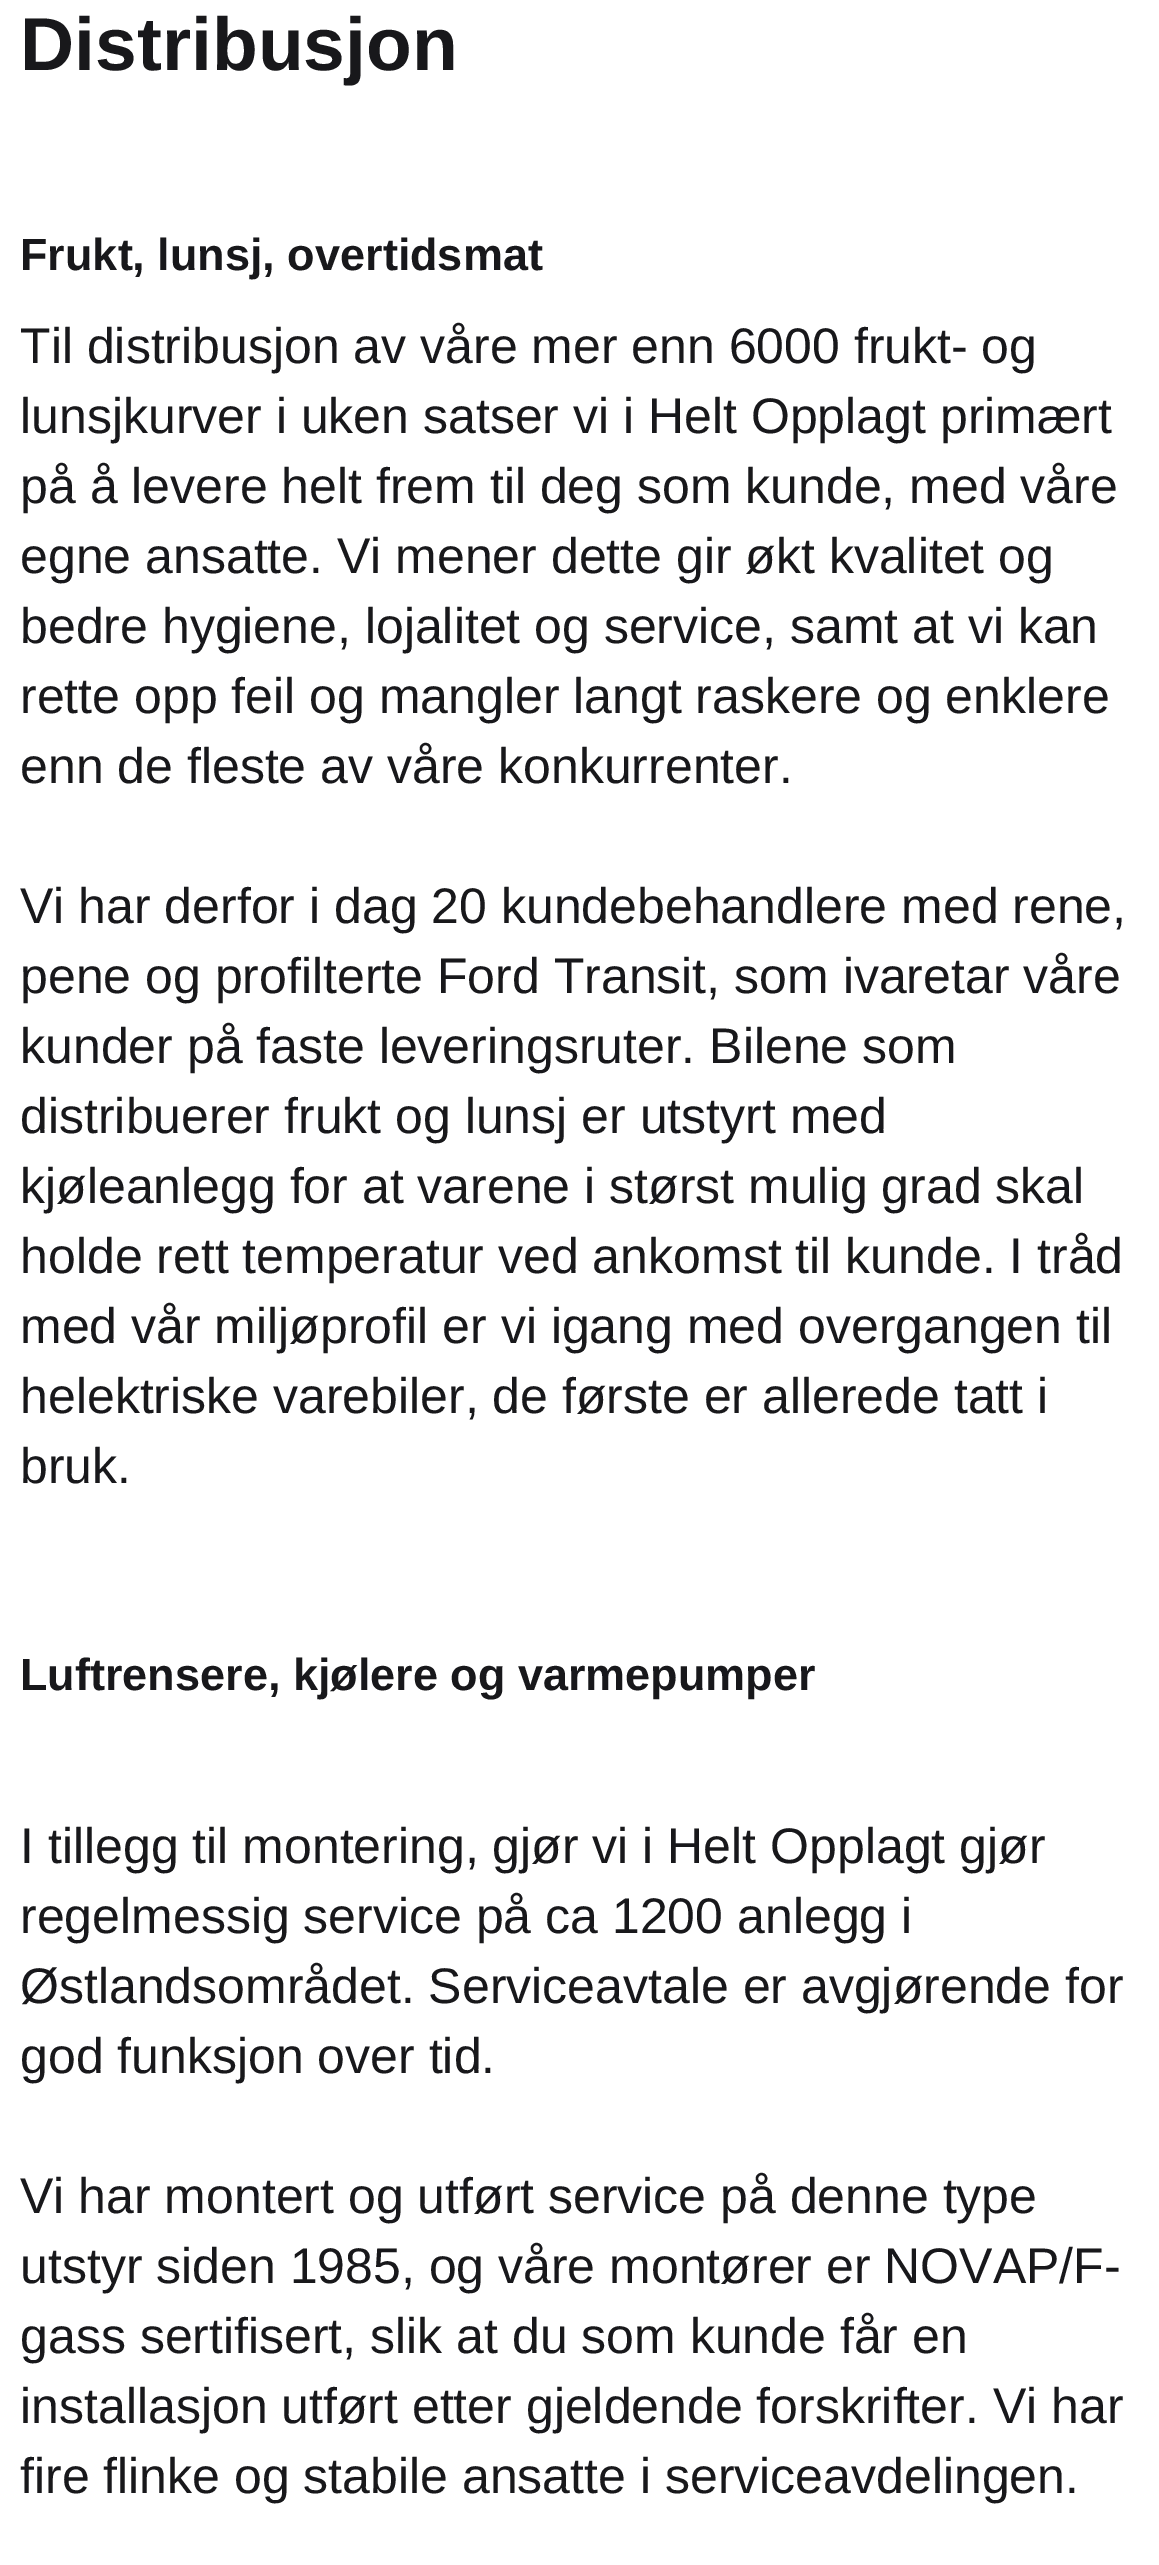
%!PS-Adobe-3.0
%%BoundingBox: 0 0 1159 2565
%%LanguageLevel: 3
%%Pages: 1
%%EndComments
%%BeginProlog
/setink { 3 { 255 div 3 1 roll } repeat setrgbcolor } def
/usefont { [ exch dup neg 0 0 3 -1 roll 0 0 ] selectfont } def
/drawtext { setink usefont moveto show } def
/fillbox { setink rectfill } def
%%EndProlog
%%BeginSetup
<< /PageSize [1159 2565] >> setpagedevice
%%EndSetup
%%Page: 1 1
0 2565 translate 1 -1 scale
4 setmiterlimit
0 0 1159 2565 255 255 255 fillbox
(Distribusjon) 20 70 /LiberationSans-Bold 75 24 24 27 drawtext
(Frukt, lunsj, overtidsmat) 20 270 /LiberationSans-Bold 45 24 24 27 drawtext
(Til distribusjon av våre mer enn 6000 frukt- og) 20 363 /LiberationSans-Regular 50 24 24 27 drawtext
(lunsjkurver i uken satser vi i Helt Opplagt primært) 20 433 /LiberationSans-Regular 50 24 24 27 drawtext
(på å levere helt frem til deg som kunde, med våre) 20 503 /LiberationSans-Regular 50 24 24 27 drawtext
(egne ansatte. Vi mener dette gir økt kvalitet og) 20 573 /LiberationSans-Regular 50 24 24 27 drawtext
(bedre hygiene, lojalitet og service, samt at vi kan) 20 643 /LiberationSans-Regular 50 24 24 27 drawtext
(rette opp feil og mangler langt raskere og enklere) 20 713 /LiberationSans-Regular 50 24 24 27 drawtext
(enn de fleste av våre konkurrenter.) 20 783 /LiberationSans-Regular 50 24 24 27 drawtext
(Vi har derfor i dag 20 kundebehandlere med rene,) 20 923 /LiberationSans-Regular 50 24 24 27 drawtext
(pene og profilterte Ford Transit, som ivaretar våre) 20 993 /LiberationSans-Regular 50 24 24 27 drawtext
(kunder på faste leveringsruter. Bilene som) 20 1063 /LiberationSans-Regular 50 24 24 27 drawtext
(distribuerer frukt og lunsj er utstyrt med) 20 1133 /LiberationSans-Regular 50 24 24 27 drawtext
(kjøleanlegg for at varene i størst mulig grad skal) 20 1203 /LiberationSans-Regular 50 24 24 27 drawtext
(holde rett temperatur ved ankomst til kunde. I tråd) 20 1273 /LiberationSans-Regular 50 24 24 27 drawtext
(med vår miljøprofil er vi igang med overgangen til) 20 1343 /LiberationSans-Regular 50 24 24 27 drawtext
(helektriske varebiler, de første er allerede tatt i) 20 1413 /LiberationSans-Regular 50 24 24 27 drawtext
(bruk.) 20 1483 /LiberationSans-Regular 50 24 24 27 drawtext
(Luftrensere, kjølere og varmepumper) 20 1690 /LiberationSans-Bold 45 24 24 27 drawtext
(I tillegg til montering, gjør vi i Helt Opplagt gjør) 20 1863 /LiberationSans-Regular 50 24 24 27 drawtext
(regelmessig service på ca 1200 anlegg i) 20 1933 /LiberationSans-Regular 50 24 24 27 drawtext
(Østlandsområdet. Serviceavtale er avgjørende for) 20 2003 /LiberationSans-Regular 50 24 24 27 drawtext
(god funksjon over tid.) 20 2073 /LiberationSans-Regular 50 24 24 27 drawtext
(Vi har montert og utført service på denne type) 20 2213 /LiberationSans-Regular 50 24 24 27 drawtext
(utstyr siden 1985, og våre montører er NOVAP/F-) 20 2283 /LiberationSans-Regular 50 24 24 27 drawtext
(gass sertifisert, slik at du som kunde får en) 20 2353 /LiberationSans-Regular 50 24 24 27 drawtext
(installasjon utført etter gjeldende forskrifter. Vi har) 20 2423 /LiberationSans-Regular 50 24 24 27 drawtext
(fire flinke og stabile ansatte i serviceavdelingen.) 20 2493 /LiberationSans-Regular 50 24 24 27 drawtext
showpage
%%EOF
